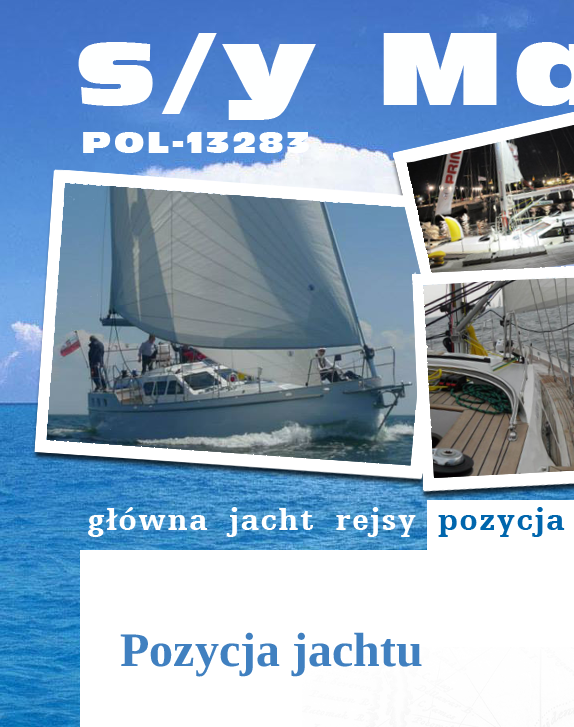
%!PS-Adobe-3.0
%%BoundingBox: 0 0 574 727
%%LanguageLevel: 3
%%Pages: 1
%%EndComments
%%BeginProlog
/setink { 3 { 255 div 3 1 roll } repeat setrgbcolor } def
/usefont { [ exch dup neg 0 0 3 -1 roll 0 0 ] selectfont } def
/drawtext { setink usefont moveto show } def
/fillbox { setink rectfill } def
/drawimage { 5 dict begin { /h /w /y /x /name } { exch def } forall
  gsave x y translate w h scale
  w h 8 [w 0 0 h 0 0] name (r) file false 3 colorimage grestore end } def
%%EndProlog
%%BeginSetup
<< /PageSize [574 727] >> setpagedevice
%%EndSetup
%%Page: 1 1
0 727 translate 1 -1 scale
4 setmiterlimit
0 0 574 727 255 255 255 fillbox
(assets/img1.rgb) 0 0 574 727 drawimage
(assets/img3.rgb) 32 111 542 389 drawimage
(assets/img2.rgb) 78 33 496 120 drawimage
(assets/img4.rgb) 88 507 120 30 drawimage
(assets/img5.rgb) 226 507 87 30 drawimage
(assets/img6.rgb) 336 507 80 30 drawimage
427 500 147 50 255 255 255 fillbox
(assets/img7.rgb) 438 507 127 30 drawimage
80 550 494 177 255 255 255 fillbox
(assets/img8.rgb) 302 647 272 80 drawimage
(Pozycja jachtu) 120 666 /LiberationSerif-Bold 48 64 128 192 drawtext
showpage
%%EOF
